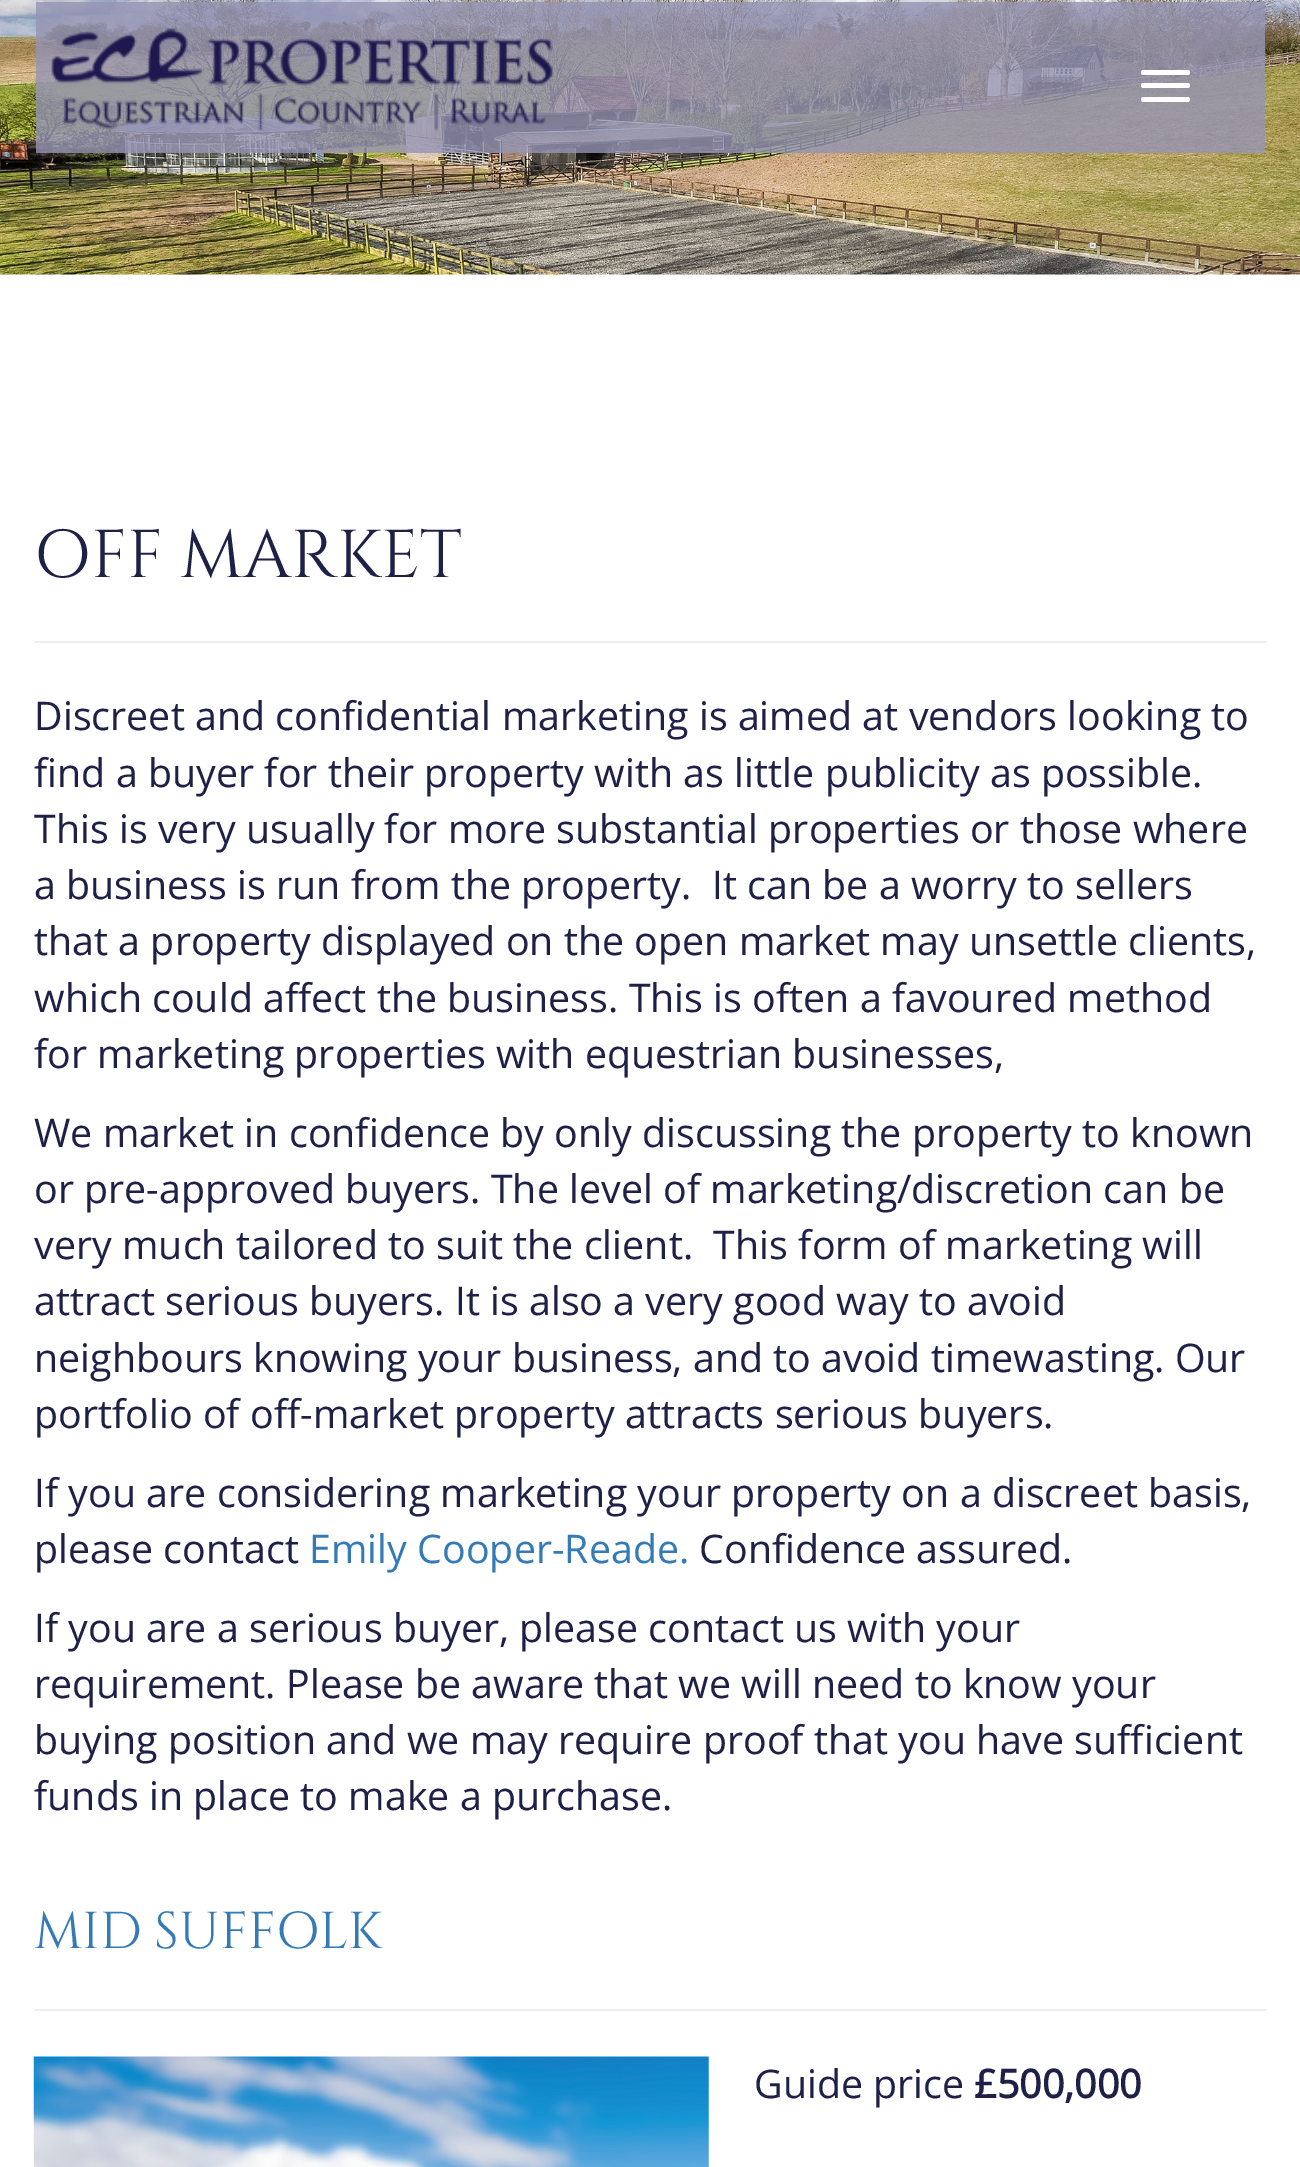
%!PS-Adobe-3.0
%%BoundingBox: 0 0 1300 2167
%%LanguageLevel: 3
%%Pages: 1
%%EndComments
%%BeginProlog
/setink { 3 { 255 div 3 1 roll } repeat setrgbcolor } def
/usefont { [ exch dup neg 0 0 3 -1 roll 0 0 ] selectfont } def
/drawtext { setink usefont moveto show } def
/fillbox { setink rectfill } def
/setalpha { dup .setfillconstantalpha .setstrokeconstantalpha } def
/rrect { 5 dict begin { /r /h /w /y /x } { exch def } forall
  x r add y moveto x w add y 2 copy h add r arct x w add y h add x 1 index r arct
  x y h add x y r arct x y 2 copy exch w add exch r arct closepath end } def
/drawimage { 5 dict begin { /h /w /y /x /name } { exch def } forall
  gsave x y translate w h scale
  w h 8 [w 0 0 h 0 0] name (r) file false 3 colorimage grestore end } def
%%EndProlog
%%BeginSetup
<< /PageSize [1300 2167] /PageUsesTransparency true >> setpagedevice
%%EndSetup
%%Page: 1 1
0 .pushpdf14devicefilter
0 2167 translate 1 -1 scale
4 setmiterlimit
0 0 1300 2167 255 255 255 fillbox
(assets/img2.rgb) 0 0 1300 275 drawimage
0.8 setalpha
36 2 1229 151 149 148 180 fillbox
1 setalpha
(assets/img1.rgb) 51 28 502 103 drawimage
255 255 255 setink
1141 70 49 5 2.5 rrect fill
1141 83 49 5 2.5 rrect fill
1141 97 49 5 2.5 rrect fill
(OFF MARKET) 34 577 /Cinzel-Regular 67.5 31 32 71 drawtext
34 641 1233 2 238 238 238 fillbox
(Discreet and confidential marketing is aimed at vendors looking to) 34 730 /OpenSans-Regular 39.4 31 32 71 drawtext
(find a buyer for their property with as little publicity as possible.) 34 787 /OpenSans-Regular 39.4 31 32 71 drawtext
(This is very usually for more substantial properties or those where) 34 843 /OpenSans-Regular 39.4 31 32 71 drawtext
(a business is run from the property.  It can be a worry to sellers) 34 899 /OpenSans-Regular 39.4 31 32 71 drawtext
(that a property displayed on the open market may unsettle clients,) 34 955 /OpenSans-Regular 39.4 31 32 71 drawtext
(which could affect the business. This is often a favoured method) 34 1012 /OpenSans-Regular 39.4 31 32 71 drawtext
(for marketing properties with equestrian businesses,) 34 1068 /OpenSans-Regular 39.4 31 32 71 drawtext
(We market in confidence by only discussing the property to known) 34 1147 /OpenSans-Regular 39.4 31 32 71 drawtext
(or pre-approved buyers. The level of marketing/discretion can be) 34 1203 /OpenSans-Regular 39.4 31 32 71 drawtext
(very much tailored to suit the client.  This form of marketing will) 34 1259 /OpenSans-Regular 39.4 31 32 71 drawtext
(attract serious buyers. It is also a very good way to avoid) 34 1315 /OpenSans-Regular 39.4 31 32 71 drawtext
(neighbours knowing your business, and to avoid timewasting. Our) 34 1372 /OpenSans-Regular 39.4 31 32 71 drawtext
(portfolio of off-market property attracts serious buyers.) 34 1428 /OpenSans-Regular 39.4 31 32 71 drawtext
(If you are considering marketing your property on a discreet basis,) 34 1507 /OpenSans-Regular 39.4 31 32 71 drawtext
(please contact) 34 1563 /OpenSans-Regular 39.4 31 32 71 drawtext
(Emily Cooper-Reade.) 309 1563 /OpenSans-Regular 39.4 51 122 183 drawtext
(Confidence assured.) 699 1563 /OpenSans-Regular 39.4 31 32 71 drawtext
(If you are a serious buyer, please contact us with your) 34 1642 /OpenSans-Regular 39.4 31 32 71 drawtext
(requirement. Please be aware that we will need to know your) 34 1698 /OpenSans-Regular 39.4 31 32 71 drawtext
(buying position and we may require proof that you have sufficient) 34 1754 /OpenSans-Regular 39.4 31 32 71 drawtext
(funds in place to make a purchase.) 34 1810 /OpenSans-Regular 39.4 31 32 71 drawtext
34 2009 1233 2 238 238 238 fillbox
(MID SUFFOLK) 34 1948 /Cinzel-Regular 51.75 51 122 183 drawtext
(assets/img3.rgb) 33 2056 676 111 drawimage
(Guide price) 754 2098 /OpenSans-Regular 39.4 31 32 71 drawtext
(£500,000) 974 2098 /OpenSans-Bold 39.4 31 32 71 drawtext
.poppdf14devicefilter showpage
%%EOF
